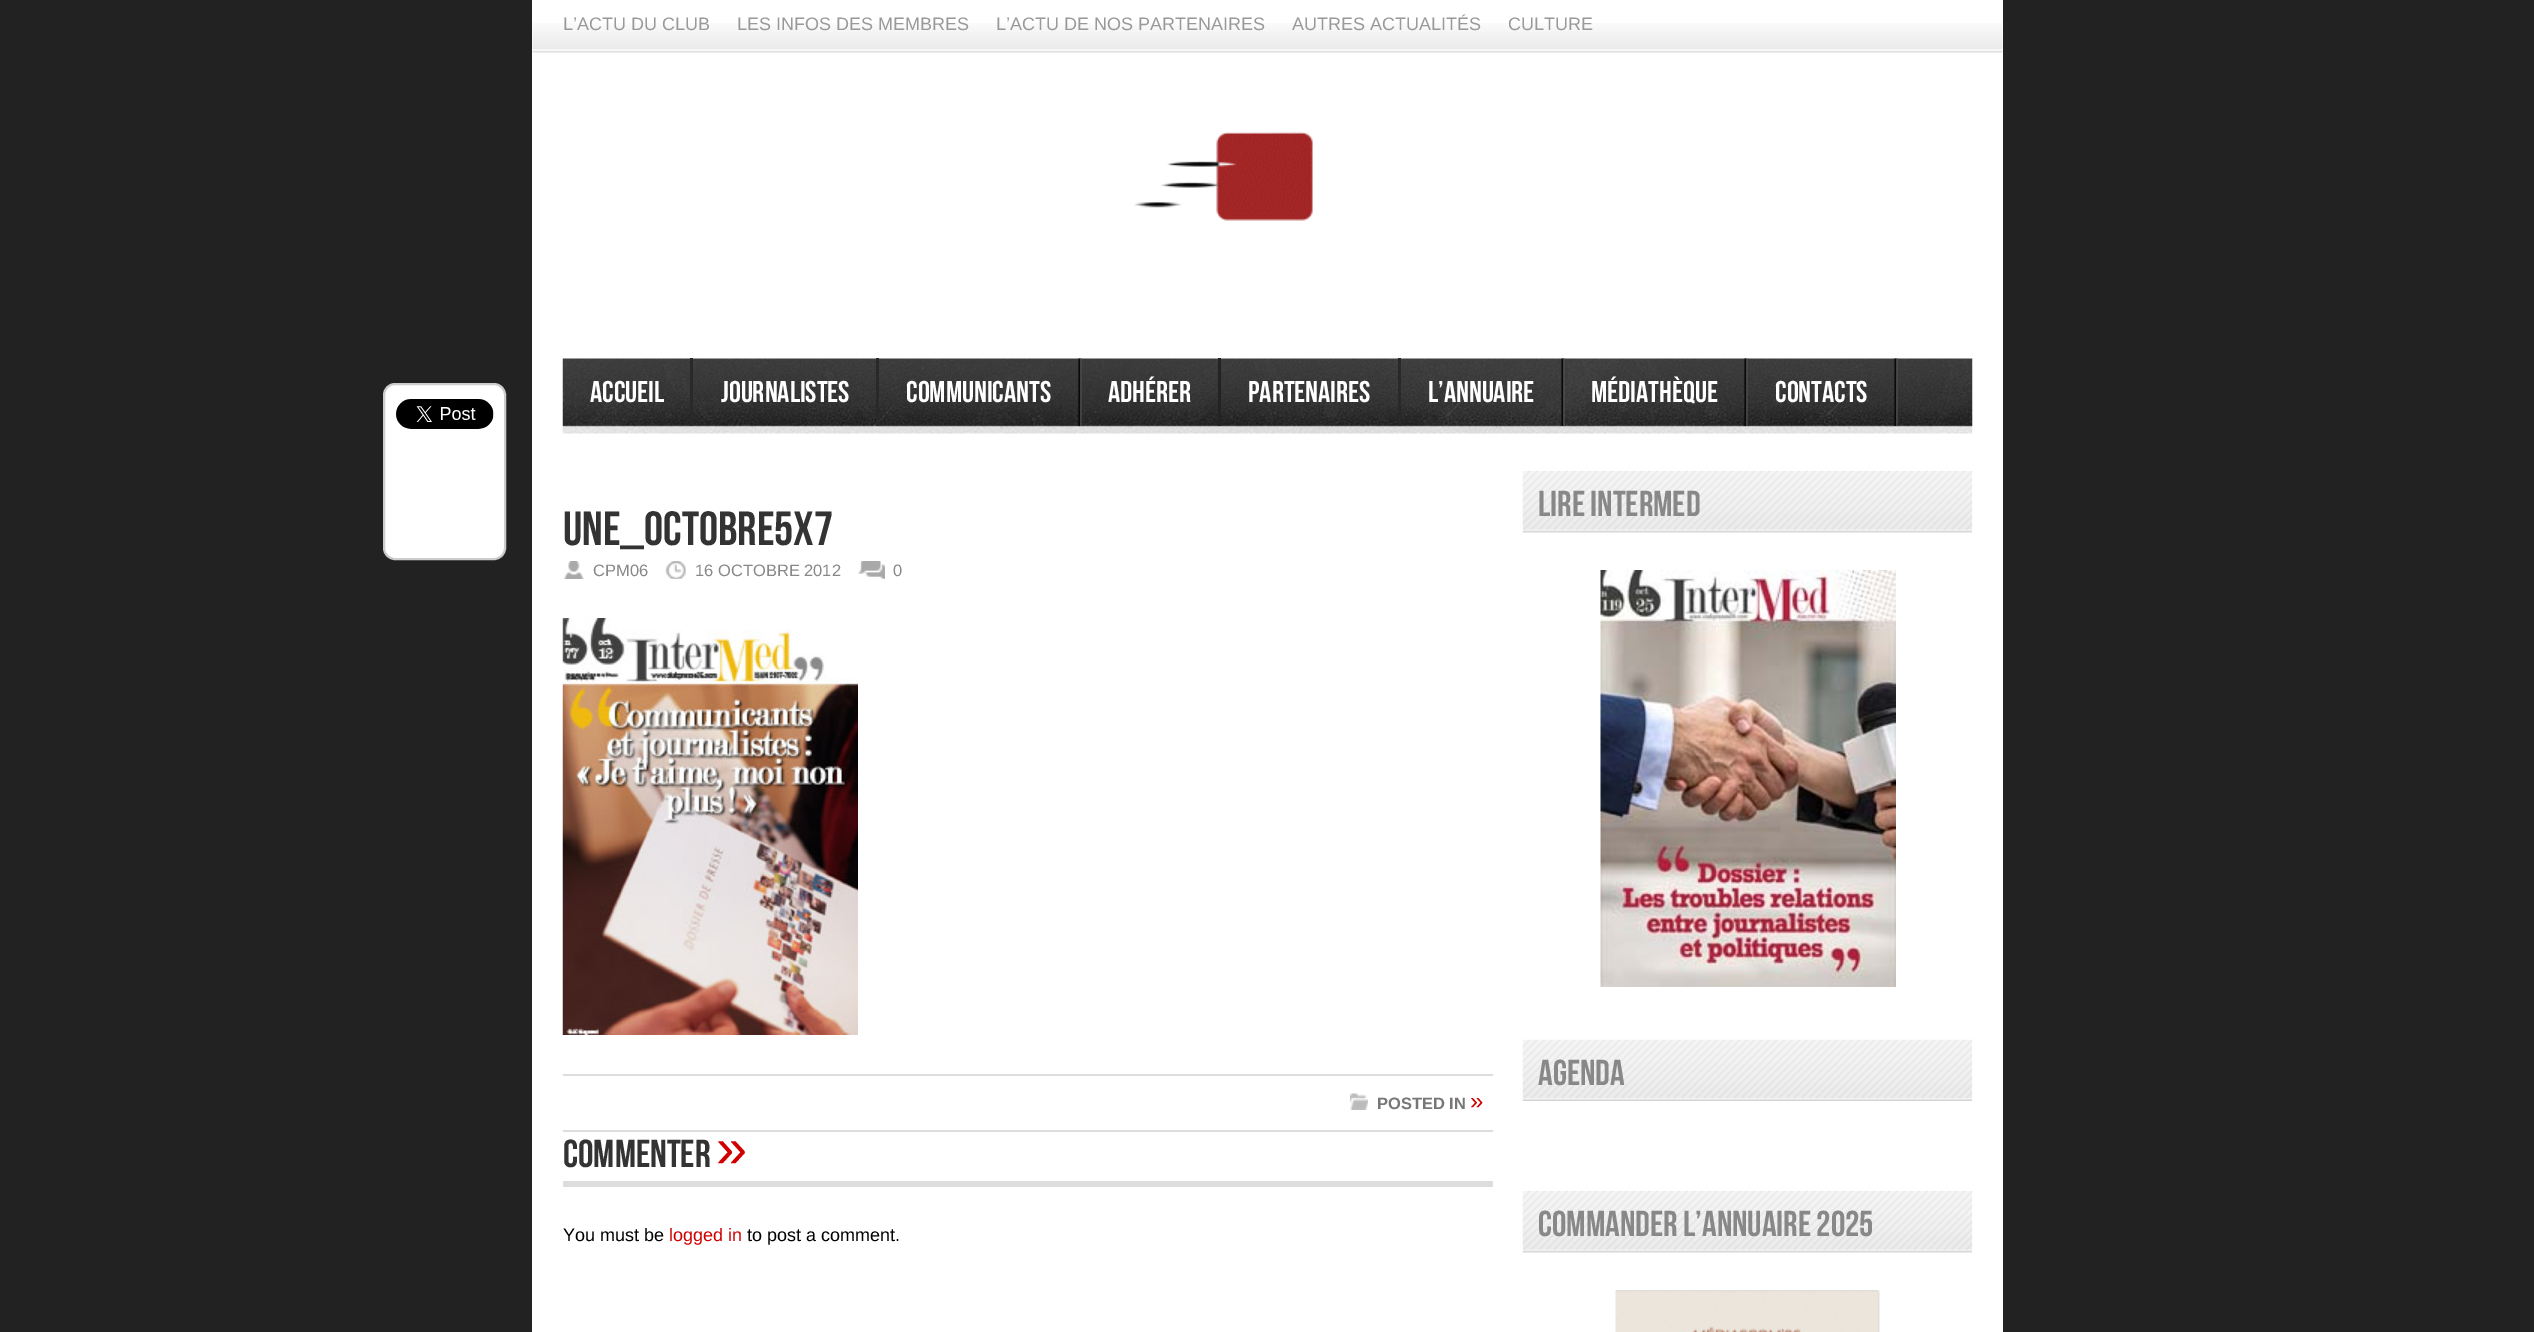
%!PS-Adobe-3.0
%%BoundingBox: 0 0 2534 1332
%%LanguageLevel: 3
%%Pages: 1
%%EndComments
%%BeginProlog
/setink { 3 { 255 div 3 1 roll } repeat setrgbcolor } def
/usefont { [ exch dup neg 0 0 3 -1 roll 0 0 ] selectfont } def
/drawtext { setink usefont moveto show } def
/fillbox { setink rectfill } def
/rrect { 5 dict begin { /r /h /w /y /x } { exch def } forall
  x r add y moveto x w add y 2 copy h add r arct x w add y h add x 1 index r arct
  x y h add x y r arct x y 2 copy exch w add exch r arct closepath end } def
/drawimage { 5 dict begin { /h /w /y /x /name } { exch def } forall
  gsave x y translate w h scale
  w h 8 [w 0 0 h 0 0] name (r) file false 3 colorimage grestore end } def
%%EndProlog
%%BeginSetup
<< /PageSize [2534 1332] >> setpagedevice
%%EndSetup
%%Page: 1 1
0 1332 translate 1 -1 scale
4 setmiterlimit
0 0 2534 1332 34 34 34 fillbox
532 0 1471 1332 255 255 255 fillbox
(assets/img1.rgb) 532 23 1471 30 drawimage
(L’ACTU DU CLUB) 563 30 /LiberationSans-Regular 18 153 153 153 drawtext
(LES INFOS DES MEMBRES) 737 30 /LiberationSans-Regular 18 153 153 153 drawtext
(L’ACTU DE NOS PARTENAIRES) 996 30 /LiberationSans-Regular 18 153 153 153 drawtext
(AUTRES ACTUALITÉS) 1292 30 /LiberationSans-Regular 18 153 153 153 drawtext
(CULTURE) 1508 30 /LiberationSans-Regular 18 153 153 153 drawtext
(assets/img2.rgb) 1134 131 180 90 drawimage
(assets/img3.rgb) 562 358 1411 76 drawimage
690 358 3 68 41 41 41 fillbox
(Accueil) 590 402 /BebasNeue-Regular 30 255 255 255 drawtext
876 358 3 68 41 41 41 fillbox
(Journalistes) 721 402 /BebasNeue-Regular 30 255 255 255 drawtext
(assets/img4.rgb) 1078 358 4 68 drawimage
(Communicants) 906 402 /BebasNeue-Regular 30 255 255 255 drawtext
1218 358 3 68 35 35 35 fillbox
(Adhérer) 1108 402 /BebasNeue-Regular 30 255 255 255 drawtext
1398 358 3 68 41 41 41 fillbox
(Partenaires) 1248 402 /BebasNeue-Regular 30 255 255 255 drawtext
(assets/img5.rgb) 1561 358 4 68 drawimage
(L’annuaire) 1428 402 /BebasNeue-Regular 30 255 255 255 drawtext
(assets/img6.rgb) 1744 358 4 68 drawimage
(Médiathèque) 1591 402 /BebasNeue-Regular 30 255 255 255 drawtext
(assets/img7.rgb) 1894 358 4 68 drawimage
(Contacts) 1775 402 /BebasNeue-Regular 30 255 255 255 drawtext
384 384 121 175 11 rrect gsave fill grestore
204 204 204 setink
2 setlinewidth
stroke
(assets/img8.rgb) 396 399 98 30 drawimage
(une_octobre5x7) 563 545 /BebasNeue-Regular 48 51 51 51 drawtext
(assets/img9.rgb) 563 561 21 18 drawimage
(CPM06) 593 576 /LiberationSans-Regular 16.5 136 136 136 drawtext
(assets/img10.rgb) 665 561 21 18 drawimage
(16 OCTOBRE 2012) 695 576 /LiberationSans-Regular 16.5 136 136 136 drawtext
(assets/img11.rgb) 858 561 27 18 drawimage
(0) 893 576 /LiberationSans-Regular 16.5 136 136 136 drawtext
(assets/img12.rgb) 562 618 296 417 drawimage
563 1074 930 2 221 221 221 fillbox
563 1130 930 2 221 221 221 fillbox
(assets/img13.rgb) 1350 1093 18 17 drawimage
(POSTED IN) 1377 1109 /LiberationSans-Bold 16.5 119 119 119 drawtext
(») 1470 1109 /LiberationSans-Regular 24 208 0 0 drawtext
563 1181 930 6 221 221 221 fillbox
(Commenter) 563 1167 /BebasNeue-Regular 39 51 51 51 drawtext
(») 716 1167 /LiberationSans-Regular 56 208 0 0 drawtext
(You must be) 563 1241 /LiberationSans-Regular 18 0 0 0 drawtext
(logged in) 669 1241 /LiberationSans-Regular 18 208 0 0 drawtext
(to post a comment.) 747 1241 /LiberationSans-Regular 18 0 0 0 drawtext
(assets/img14.rgb) 1522 471 451 62 drawimage
(Lire Intermed) 1538 516 /BebasNeue-Regular 36 136 136 136 drawtext
(assets/img15.rgb) 1600 570 296 417 drawimage
(assets/img16.rgb) 1522 1039 451 62 drawimage
(AGENDA) 1538 1085 /BebasNeue-Regular 36 136 136 136 drawtext
(assets/img17.rgb) 1522 1191 451 62 drawimage
(Commander l’annuaire 2025) 1538 1236 /BebasNeue-Regular 36 136 136 136 drawtext
(assets/img18.rgb) 1615 1290 265 42 drawimage
showpage
%%EOF
